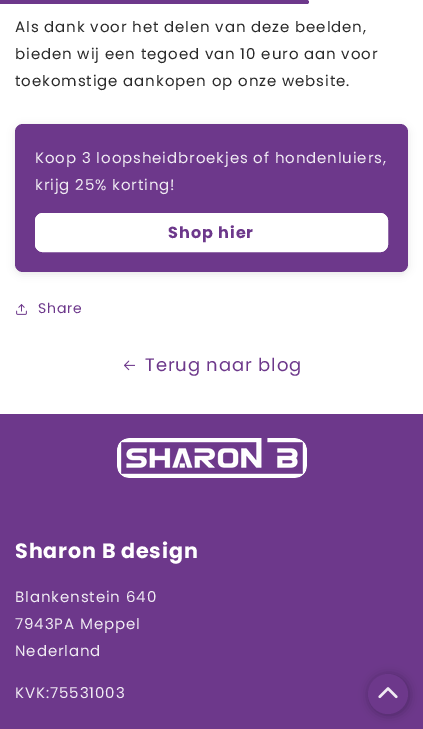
%!PS-Adobe-3.0
%%BoundingBox: 0 0 423 729
%%LanguageLevel: 3
%%Pages: 1
%%EndComments
%%BeginProlog
/setink { 3 { 255 div 3 1 roll } repeat setrgbcolor } def
/usefont { [ exch dup neg 0 0 3 -1 roll 0 0 ] selectfont } def
/fillbox { setink rectfill } def
/setalpha { dup .setfillconstantalpha .setstrokeconstantalpha } def
/disc { newpath 0 360 arc closepath } def
/rrect { 5 dict begin { /r /h /w /y /x } { exch def } forall
  x r add y moveto x w add y 2 copy h add r arct x w add y h add x 1 index r arct
  x y h add x y r arct x y 2 copy exch w add exch r arct closepath end } def
/softshadow { 12 dict begin { /a /b /q /h /w /y /x } { exch def } forall gsave /was 0 def
  9 -2 -9 { dup b mul 4 div /e exch def 1 sub .425 mul 2.718 exch exp 1 add a .99 .min exch div /now exch def
    1 1 now sub 1 was sub div sub setalpha /was now def
    w h .min e 2 mul add 0 gt { x e sub y e sub w e 2 mul add h e 2 mul add
      q e add b .6 mul add w h .min 2 div e add .min 0 .max rrect fill } if } for grestore end } def
/drawimage { 5 dict begin { /h /w /y /x /name } { exch def } forall
  gsave x y translate w h scale
  w h 8 [w 0 0 h 0 0] name (r) file false 3 colorimage grestore end } def
%%EndProlog
%%BeginSetup
<< /PageSize [423 729] /PageUsesTransparency true >> setpagedevice
%%EndSetup
%%Page: 1 1
0 .pushpdf14devicefilter
0 729 translate 1 -1 scale
4 setmiterlimit
0 0 423 729 255 255 255 fillbox
109 56 139 setink
0 0 moveto 307 0 lineto 308 0 309 1 309 2 curveto 309 3 308 4 307 4 curveto 0 4 lineto closepath fill
/Poppins-Regular 15 usefont
42 42 42 setink
15 32 moveto 0.9 0 (Als dank voor het delen van deze beelden,) ashow
15 59 moveto 0.9 0 (bieden wij een tegoed van 10 euro aan voor) ashow
15 86 moveto 0.9 0 (toekomstige aankopen op onze website.) ashow
0 0 0 setink
15 126 393 148 8 4 0.1 softshadow
109 56 139 setink
15 124 393 148 8 rrect fill
240 235 243 setink
35 163 moveto 0.9 0 (Koop 3 loopsheidbroekjes of hondenluiers,) ashow
35 190 moveto 0.9 0 (krijg 25% korting!) ashow
255 255 255 setink
35 213 353 39 8 rrect fill
2 setlinewidth
36 214 351 37 7 rrect stroke
/Poppins-Bold 16 usefont
109 56 139 setink
168 238 moveto 1 0 (Shop hier) ashow
(assets/img1.rgb) 16 304 11 11 drawimage
/Poppins-Regular 14 usefont
38 313 moveto 0.9 0 (Share) ashow
(assets/img2.rgb) 124 360 11 11 drawimage
/Poppins-Regular 18 usefont
145 371 moveto 0.9 0 (Terug naar blog) ashow
0 414 423 315 109 56 139 fillbox
(assets/img3.rgb) 117 438 190 40 drawimage
/Poppins-Bold 20.75 usefont
255 255 255 setink
15 558 moveto 0.75 0 (Sharon B design) ashow
/Poppins-Regular 15 usefont
240 235 243 setink
15 602 moveto 0.9 0 (Blankenstein 640) ashow
15 629 moveto 0.9 0 (7943PA Meppel) ashow
15 656 moveto 0.9 0 (Nederland) ashow
15 698 moveto 0.9 0 (KVK:75531003) ashow
0 0 0 setink
369 675 40 40 20 5 0.3 softshadow
109 56 139 setink
388 694 20 disc fill
(assets/img4.rgb) 378 687 20 12 drawimage
.poppdf14devicefilter showpage
%%EOF
